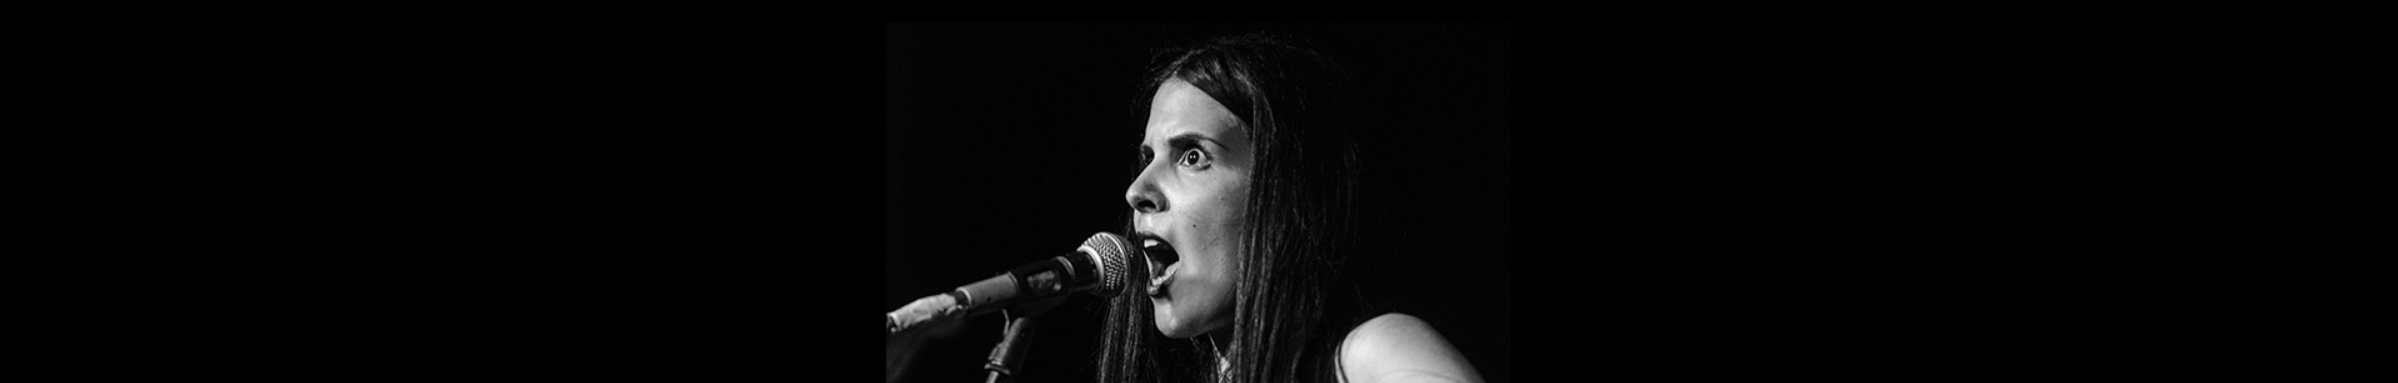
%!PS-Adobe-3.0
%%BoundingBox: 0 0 2398 383
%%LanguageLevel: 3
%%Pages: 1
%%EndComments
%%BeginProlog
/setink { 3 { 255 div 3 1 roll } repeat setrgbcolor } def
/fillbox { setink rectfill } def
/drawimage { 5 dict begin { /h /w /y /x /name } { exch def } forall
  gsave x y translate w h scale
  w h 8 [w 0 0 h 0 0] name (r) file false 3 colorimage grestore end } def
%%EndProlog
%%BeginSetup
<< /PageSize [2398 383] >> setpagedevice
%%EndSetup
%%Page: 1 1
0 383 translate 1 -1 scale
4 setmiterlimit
0 0 2398 383 0 0 0 fillbox
(assets/img1.rgb) 886 22 625 361 drawimage
showpage
%%EOF
